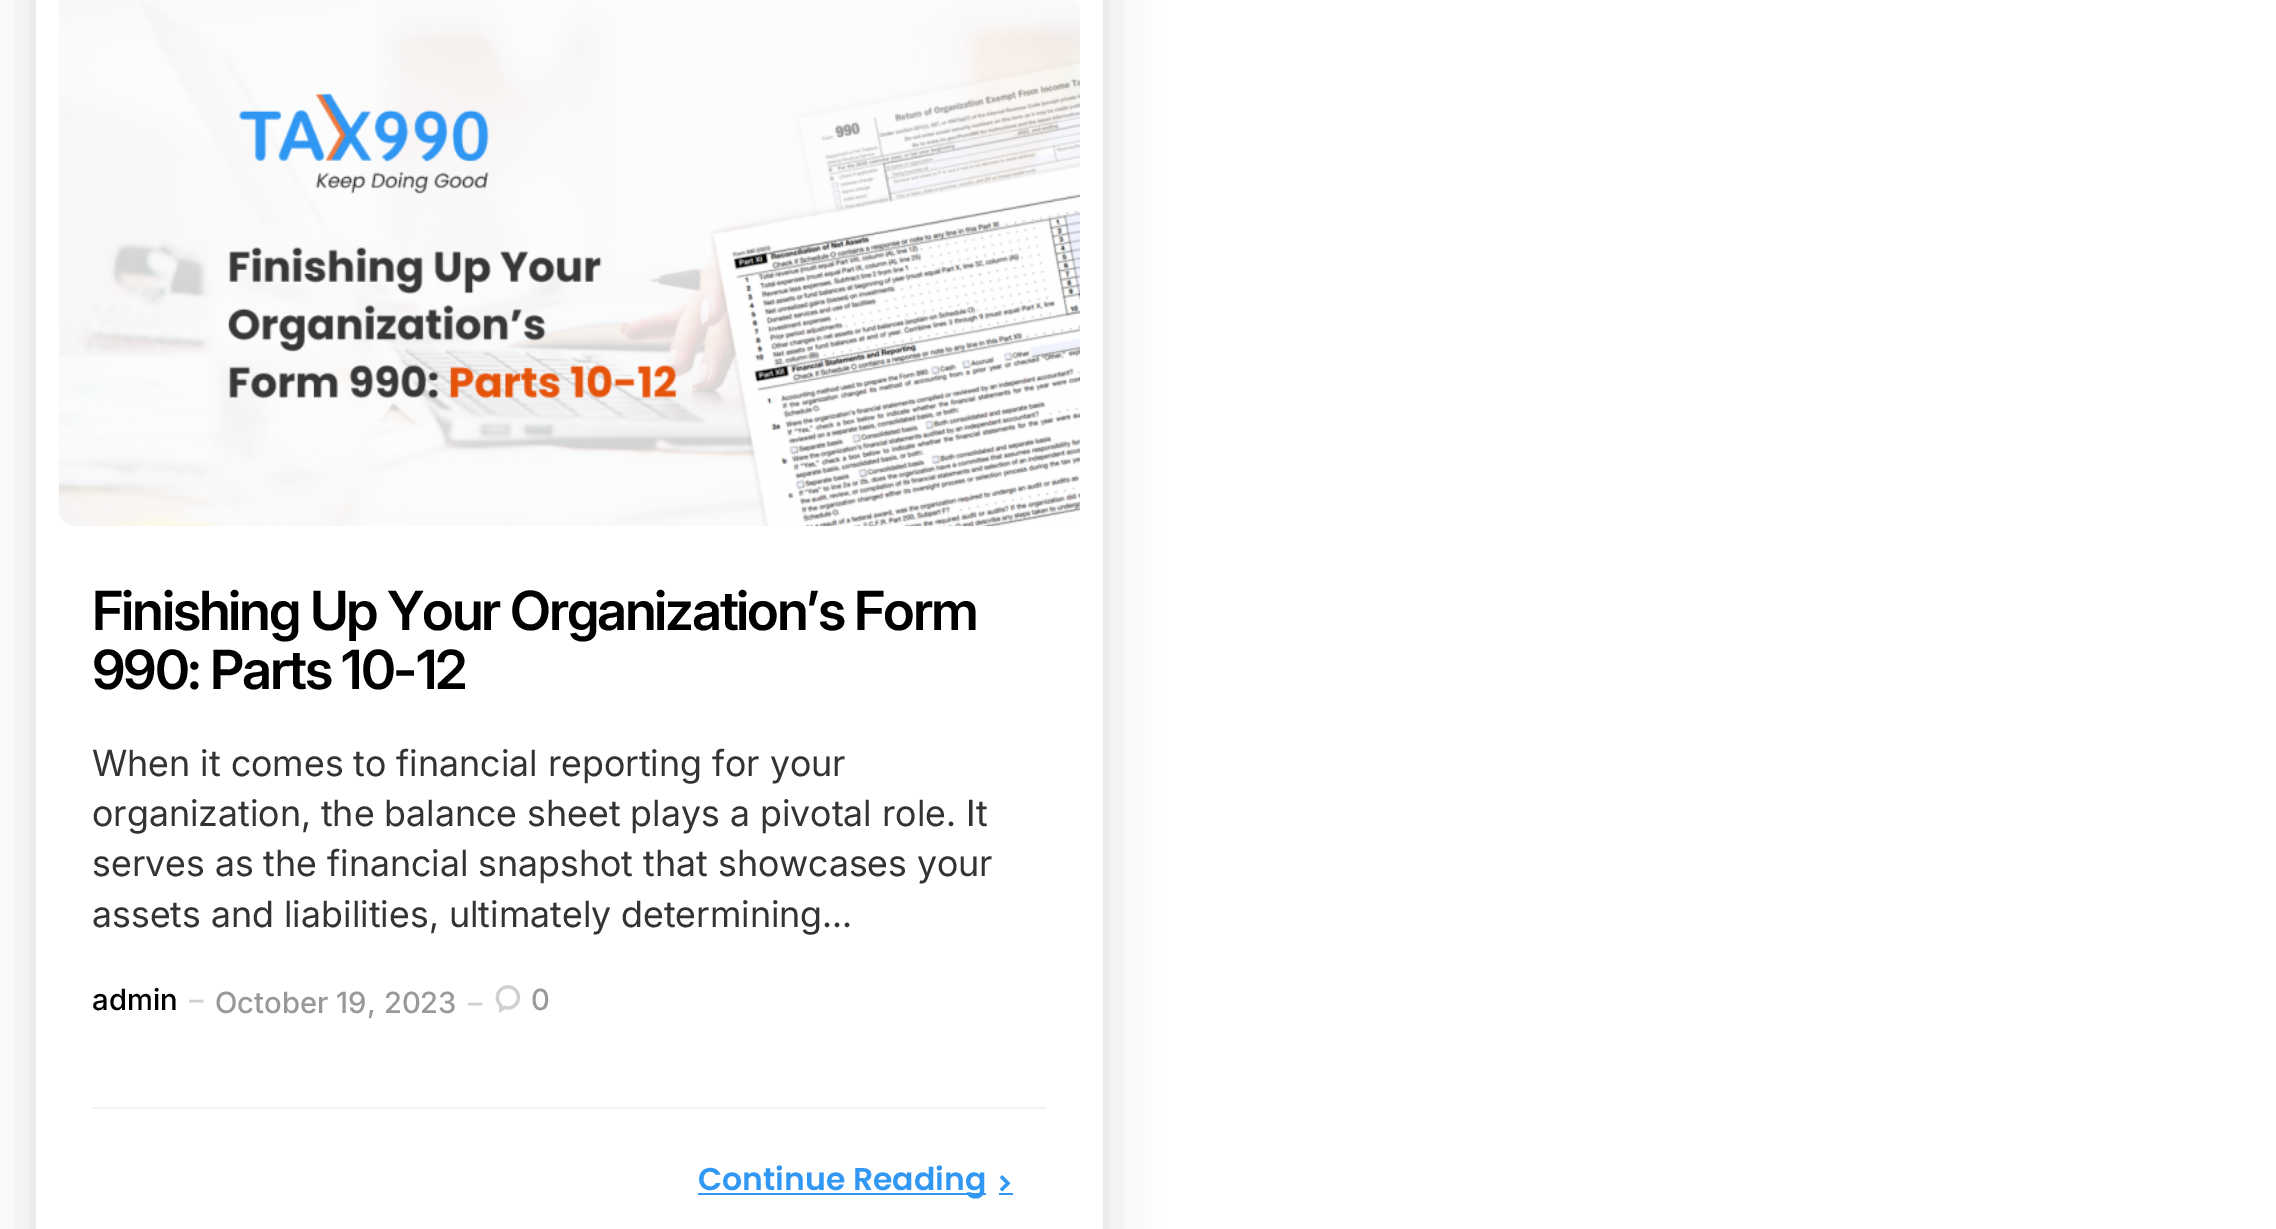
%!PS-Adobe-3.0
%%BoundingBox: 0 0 2276 1229
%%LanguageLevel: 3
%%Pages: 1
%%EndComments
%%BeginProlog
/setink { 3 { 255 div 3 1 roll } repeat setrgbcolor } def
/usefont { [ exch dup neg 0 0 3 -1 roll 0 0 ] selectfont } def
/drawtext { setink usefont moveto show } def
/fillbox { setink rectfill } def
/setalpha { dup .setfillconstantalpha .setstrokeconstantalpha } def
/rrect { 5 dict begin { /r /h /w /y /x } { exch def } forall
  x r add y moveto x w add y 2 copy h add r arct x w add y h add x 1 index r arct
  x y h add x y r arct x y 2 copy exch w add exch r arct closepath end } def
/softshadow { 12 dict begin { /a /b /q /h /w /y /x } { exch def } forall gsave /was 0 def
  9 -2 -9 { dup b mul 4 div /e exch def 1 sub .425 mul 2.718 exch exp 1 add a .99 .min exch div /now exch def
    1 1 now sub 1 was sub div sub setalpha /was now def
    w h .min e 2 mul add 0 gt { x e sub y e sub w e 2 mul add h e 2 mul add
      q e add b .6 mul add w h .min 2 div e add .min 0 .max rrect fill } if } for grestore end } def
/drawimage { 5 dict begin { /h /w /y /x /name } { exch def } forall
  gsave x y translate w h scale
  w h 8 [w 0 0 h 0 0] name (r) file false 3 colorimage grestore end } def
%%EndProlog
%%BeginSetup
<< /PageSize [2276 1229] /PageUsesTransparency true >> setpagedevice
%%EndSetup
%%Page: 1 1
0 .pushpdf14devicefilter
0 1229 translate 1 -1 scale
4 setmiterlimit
0 0 2276 1229 255 255 255 fillbox
0 0 0 setink
36 -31 1067 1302 18 28 0.07 softshadow
36 -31 1067 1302 18 28 0.07 softshadow
36 0 1067 1229 255 255 255 fillbox
(assets/img1.rgb) 58 0 1022 527 drawimage
/Inter-SemiBold 54 usefont
0 0 0 setink
92 630 moveto -2.25 0 (Finishing Up Your Organization’s Form) ashow
92 689 moveto -2.25 0 (990: Parts 10-12) ashow
(When it comes to financial reporting for your) 92 776 /Inter-Regular 36 51 51 51 drawtext
(organization, the balance sheet plays a pivotal role. It) 92 826 /Inter-Regular 36 51 51 51 drawtext
(serves as the financial snapshot that showcases your) 92 876 /Inter-Regular 36 51 51 51 drawtext
(assets and liabilities, ultimately determining...) 92 927 /Inter-Regular 36 51 51 51 drawtext
(admin) 92 1010 /Inter-Medium 29.25 0 0 0 drawtext
(–) 189 1010 /Inter-Medium 29.25 207 208 210 drawtext
(October 19, 2023) 215 1013 /Inter-Medium 29.25 153 153 153 drawtext
(–) 468 1013 /Inter-Medium 29.25 207 208 210 drawtext
(assets/img2.rgb) 495 985 26 28 drawimage
(0) 531 1010 /Inter-Medium 29.25 153 153 153 drawtext
92 1107 954 2 242 242 243 fillbox
698 1193 288 2 48 151 243 fillbox
(Continue Reading) 698 1190 /Poppins-SemiBold 31.5 48 151 243 drawtext
(assets/img3.rgb) 999 1175 12 17 drawimage
999 1193 14 2 48 151 243 fillbox
.poppdf14devicefilter showpage
%%EOF
